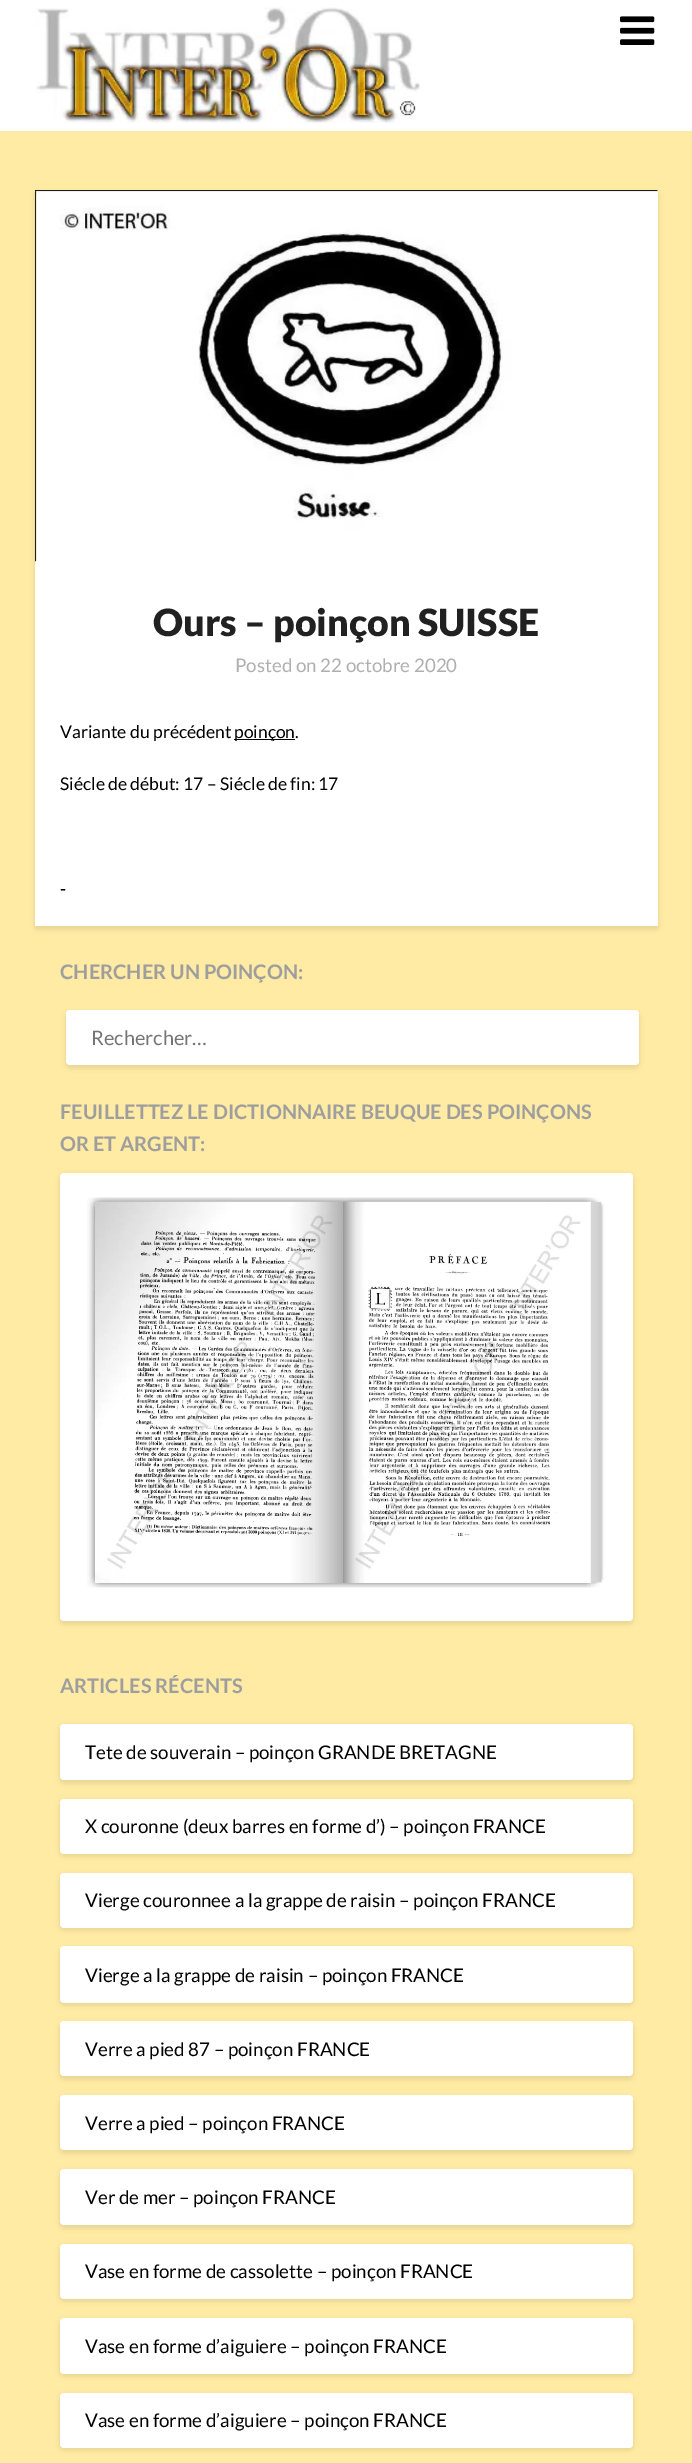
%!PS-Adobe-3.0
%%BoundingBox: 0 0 692 2463
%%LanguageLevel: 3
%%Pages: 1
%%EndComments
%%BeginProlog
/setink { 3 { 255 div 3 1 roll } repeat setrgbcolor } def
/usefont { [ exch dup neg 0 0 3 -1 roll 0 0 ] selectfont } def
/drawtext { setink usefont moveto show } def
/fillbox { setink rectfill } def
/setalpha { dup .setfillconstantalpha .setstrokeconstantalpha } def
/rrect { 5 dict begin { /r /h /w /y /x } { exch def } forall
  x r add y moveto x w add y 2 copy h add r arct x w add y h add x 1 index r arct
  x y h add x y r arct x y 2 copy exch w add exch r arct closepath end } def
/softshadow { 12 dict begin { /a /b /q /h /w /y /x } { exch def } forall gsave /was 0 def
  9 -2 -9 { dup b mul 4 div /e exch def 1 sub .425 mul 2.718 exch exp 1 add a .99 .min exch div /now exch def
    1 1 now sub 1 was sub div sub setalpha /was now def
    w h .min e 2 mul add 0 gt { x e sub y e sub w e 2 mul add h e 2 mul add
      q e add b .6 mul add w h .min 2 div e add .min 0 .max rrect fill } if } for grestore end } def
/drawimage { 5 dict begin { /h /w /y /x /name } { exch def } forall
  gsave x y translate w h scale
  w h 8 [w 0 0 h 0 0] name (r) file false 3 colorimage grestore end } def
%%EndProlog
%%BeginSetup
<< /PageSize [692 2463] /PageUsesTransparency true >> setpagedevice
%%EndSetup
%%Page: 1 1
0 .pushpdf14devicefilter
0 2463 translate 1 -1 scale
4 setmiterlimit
0 0 692 2463 255 235 164 fillbox
0 0 692 131 255 255 255 fillbox
(assets/img1.rgb) 35 7 385 116 drawimage
(assets/img2.rgb) 620 16 35 29 drawimage
0 0 0 setink
35 193 623 736 1 2.5 0.1 softshadow
255 255 255 setink
35 190 623 736 1 rrect fill
(assets/img3.rgb) 35 190 623 372 drawimage
(Ours – poinçon SUISSE) 153 636 /Lato-Black 37.5 33 33 33 drawtext
(Posted on 22 octobre 2020) 235 672 /Lato-Regular 18.75 175 175 175 drawtext
(Variante du précédent) 60 738 /Lato-Regular 17.5 0 0 0 drawtext
234 739 61 1 0 0 0 fillbox
(poinçon.) 234 738 /Lato-Regular 17.5 0 0 0 drawtext
(Siécle de début: 17 – Siécle de fin: 17) 60 790 /Lato-Regular 17.5 0 0 0 drawtext
(-) 60 895 /Lato-Regular 17.5 0 0 0 drawtext
(CHERCHER UN POINÇON:) 60 979 /Lato-Bold 20 158 158 158 drawtext
0 0 0 setink
66 1013 573 55 4 2.5 0.1 softshadow
255 255 255 setink
66 1010 573 55 4 rrect fill
(Rechercher…) 91 1045 /Lato-Regular 20 117 117 117 drawtext
(FEUILLETTEZ LE DICTIONNAIRE BEUQUE DES POINÇONS) 60 1119 /Lato-Bold 20 158 158 158 drawtext
(OR ET ARGENT:) 60 1151 /Lato-Bold 20 158 158 158 drawtext
0 0 0 setink
60 1175 573 449 4 2.5 0.1 softshadow
255 255 255 setink
60 1173 573 448 4 rrect fill
(assets/img4.rgb) 87 1197 518 391 drawimage
(ARTICLES RÉCENTS) 60 1693 /Lato-Bold 20 158 158 158 drawtext
0 0 0 setink
60 1726 573 57 4 2.5 0.1 softshadow
255 255 255 setink
60 1724 573 56 4 rrect fill
(Tete de souverain – poinçon GRANDE BRETAGNE) 85 1759 /Lato-Regular 18.75 0 0 0 drawtext
60 1801 573 55 4 2.5 0.1 softshadow
255 255 255 setink
60 1799 573 55 4 rrect fill
(X couronne \(deux barres en forme d’\) – poinçon FRANCE) 85 1833 /Lato-Regular 18.75 0 0 0 drawtext
60 1875 573 55 4 2.5 0.1 softshadow
255 255 255 setink
60 1873 573 55 4 rrect fill
(Vierge couronnee a la grappe de raisin – poinçon FRANCE) 85 1907 /Lato-Regular 18.75 0 0 0 drawtext
60 1949 573 56 4 2.5 0.1 softshadow
255 255 255 setink
60 1946 573 57 4 rrect fill
(Vierge a la grappe de raisin – poinçon FRANCE) 85 1982 /Lato-Regular 18.75 0 0 0 drawtext
60 2024 573 55 4 2.5 0.1 softshadow
255 255 255 setink
60 2021 573 55 4 rrect fill
(Verre a pied 87 – poinçon FRANCE) 85 2056 /Lato-Regular 18.75 0 0 0 drawtext
60 2098 573 55 4 2.5 0.1 softshadow
255 255 255 setink
60 2095 573 55 4 rrect fill
(Verre a pied – poinçon FRANCE) 85 2130 /Lato-Regular 18.75 0 0 0 drawtext
60 2171 573 57 4 2.5 0.1 softshadow
255 255 255 setink
60 2169 573 56 4 rrect fill
(Ver de mer – poinçon FRANCE) 85 2204 /Lato-Regular 18.75 0 0 0 drawtext
60 2246 573 55 4 2.5 0.1 softshadow
255 255 255 setink
60 2244 573 55 4 rrect fill
(Vase en forme de cassolette – poinçon FRANCE) 85 2278 /Lato-Regular 18.75 0 0 0 drawtext
60 2320 573 56 4 2.5 0.1 softshadow
255 255 255 setink
60 2318 573 56 4 rrect fill
(Vase en forme d’aiguiere – poinçon FRANCE) 85 2353 /Lato-Regular 18.75 0 0 0 drawtext
60 2395 573 55 4 2.5 0.1 softshadow
255 255 255 setink
60 2393 573 55 4 rrect fill
(Vase en forme d’aiguiere – poinçon FRANCE) 85 2427 /Lato-Regular 18.75 0 0 0 drawtext
.poppdf14devicefilter showpage
%%EOF
